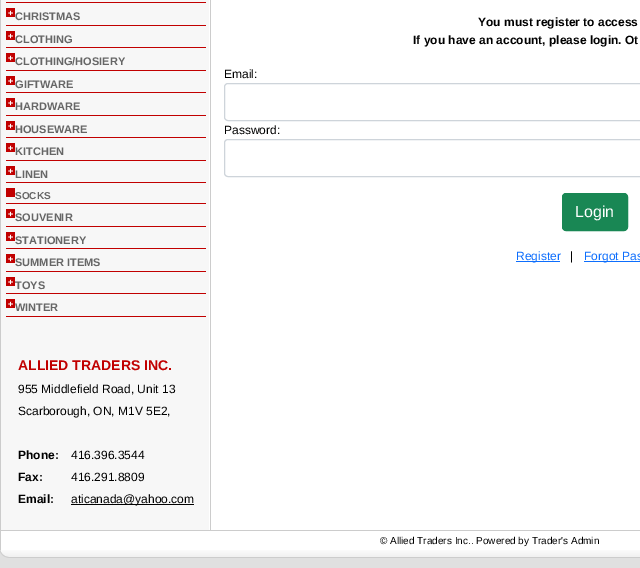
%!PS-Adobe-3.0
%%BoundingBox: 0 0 640 568
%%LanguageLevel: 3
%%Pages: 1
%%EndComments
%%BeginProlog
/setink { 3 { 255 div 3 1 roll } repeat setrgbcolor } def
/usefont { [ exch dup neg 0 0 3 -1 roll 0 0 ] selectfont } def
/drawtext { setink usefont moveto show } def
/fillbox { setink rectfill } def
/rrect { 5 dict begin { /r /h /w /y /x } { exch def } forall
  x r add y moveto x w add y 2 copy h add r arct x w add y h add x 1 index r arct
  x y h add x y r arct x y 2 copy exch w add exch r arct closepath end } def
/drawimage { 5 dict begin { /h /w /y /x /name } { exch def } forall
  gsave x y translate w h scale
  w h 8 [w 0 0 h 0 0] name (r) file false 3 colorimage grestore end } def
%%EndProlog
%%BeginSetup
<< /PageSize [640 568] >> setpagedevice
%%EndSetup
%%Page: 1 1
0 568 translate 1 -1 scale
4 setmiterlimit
0 0 640 568 224 224 224 fillbox
209 0 431 530 255 255 255 fillbox
0 0 1 530 204 204 204 fillbox
1 0 208 530 247 247 247 fillbox
210 0 1 530 204 204 204 fillbox
6 2 200 1 193 0 0 fillbox
6 8 9 9 193 0 0 fillbox
(+) 8 16 /LiberationSans-Bold 9 255 255 255 drawtext
(CHRISTMAS) 15 20 /LiberationSans-Bold 11 102 102 102 drawtext
6 25 200 1 193 0 0 fillbox
6 31 9 9 193 0 0 fillbox
(+) 8 39 /LiberationSans-Bold 9 255 255 255 drawtext
(CLOTHING) 15 43 /LiberationSans-Bold 11 102 102 102 drawtext
6 47 200 1 193 0 0 fillbox
6 53 9 9 193 0 0 fillbox
(+) 8 61 /LiberationSans-Bold 9 255 255 255 drawtext
(CLOTHING/HOSIERY) 15 65 /LiberationSans-Bold 11 102 102 102 drawtext
6 70 200 1 193 0 0 fillbox
6 76 9 9 193 0 0 fillbox
(+) 8 84 /LiberationSans-Bold 9 255 255 255 drawtext
(GIFTWARE) 15 88 /LiberationSans-Bold 11 102 102 102 drawtext
6 92 200 1 193 0 0 fillbox
6 98 9 9 193 0 0 fillbox
(+) 8 106 /LiberationSans-Bold 9 255 255 255 drawtext
(HARDWARE) 15 110 /LiberationSans-Bold 11 102 102 102 drawtext
6 115 200 1 193 0 0 fillbox
6 121 9 9 193 0 0 fillbox
(+) 8 129 /LiberationSans-Bold 9 255 255 255 drawtext
(HOUSEWARE) 15 133 /LiberationSans-Bold 11 102 102 102 drawtext
6 137 200 1 193 0 0 fillbox
6 143 9 9 193 0 0 fillbox
(+) 8 151 /LiberationSans-Bold 9 255 255 255 drawtext
(KITCHEN) 15 155 /LiberationSans-Bold 11 102 102 102 drawtext
6 160 200 1 193 0 0 fillbox
6 166 9 9 193 0 0 fillbox
(+) 8 174 /LiberationSans-Bold 9 255 255 255 drawtext
(LINEN) 15 178 /LiberationSans-Bold 11 102 102 102 drawtext
6 182 200 1 193 0 0 fillbox
6 188 9 9 193 0 0 fillbox
(SOCKS) 15 199 /LiberationSans-Bold 10 102 102 102 drawtext
6 203 200 1 193 0 0 fillbox
6 209 9 9 193 0 0 fillbox
(+) 8 217 /LiberationSans-Bold 9 255 255 255 drawtext
(SOUVENIR) 15 221 /LiberationSans-Bold 11 102 102 102 drawtext
6 226 200 1 193 0 0 fillbox
6 232 9 9 193 0 0 fillbox
(+) 8 240 /LiberationSans-Bold 9 255 255 255 drawtext
(STATIONERY) 15 244 /LiberationSans-Bold 11 102 102 102 drawtext
6 248 200 1 193 0 0 fillbox
6 254 9 9 193 0 0 fillbox
(+) 8 262 /LiberationSans-Bold 9 255 255 255 drawtext
(SUMMER ITEMS) 15 266 /LiberationSans-Bold 11 102 102 102 drawtext
6 271 200 1 193 0 0 fillbox
6 277 9 9 193 0 0 fillbox
(+) 8 285 /LiberationSans-Bold 9 255 255 255 drawtext
(TOYS) 15 289 /LiberationSans-Bold 11 102 102 102 drawtext
6 293 200 1 193 0 0 fillbox
6 299 9 9 193 0 0 fillbox
(+) 8 307 /LiberationSans-Bold 9 255 255 255 drawtext
(WINTER) 15 311 /LiberationSans-Bold 11 102 102 102 drawtext
6 316 200 1 193 0 0 fillbox
(ALLIED TRADERS INC.) 18 370 /LiberationSans-Bold 14 193 0 0 drawtext
(955 Middlefield Road, Unit 13) 18 393 /LiberationSans-Regular 12 0 0 0 drawtext
(Scarborough, ON, M1V 5E2,) 18 415 /LiberationSans-Regular 12 0 0 0 drawtext
(Phone:) 18 459 /LiberationSans-Bold 12 0 0 0 drawtext
(416.396.3544) 71 459 /LiberationSans-Regular 12 0 0 0 drawtext
(Fax:) 18 481 /LiberationSans-Bold 12 0 0 0 drawtext
(416.291.8809) 71 481 /LiberationSans-Regular 12 0 0 0 drawtext
(Email:) 18 503 /LiberationSans-Bold 12 0 0 0 drawtext
71 504 123 1 0 0 0 fillbox
(aticanada@yahoo.com) 71 503 /LiberationSans-Regular 12 0 0 0 drawtext
(You must register to access) 478 26 /LiberationSans-Bold 12 0 0 0 drawtext
(If you have an account, please login. Ot) 413 44 /LiberationSans-Bold 12 0 0 0 drawtext
(Email:) 224 78 /LiberationSans-Regular 12 0 0 0 drawtext
206 212 218 setink
224.5 83.5 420 37 3.5 rrect stroke
(Password:) 224 134 /LiberationSans-Regular 12 0 0 0 drawtext
206 212 218 setink
228 139.5 moveto 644.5 139.5 lineto 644.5 176.5 lineto 228 176.5 lineto 226 176.5 224.5 175 224.5 173 curveto 224.5 143 lineto 224.5 141 226 139.5 228 139.5 curveto closepath stroke
25 135 84 setink
562.5 193.5 65 37 3.5 rrect gsave fill grestore
stroke
(Login) 575 217 /LiberationSans-Regular 16 255 255 255 drawtext
516 261 44 1 13 110 253 fillbox
(Register) 516 260 /LiberationSans-Regular 12 13 110 253 drawtext
(|) 570 260 /LiberationSans-Regular 12 0 0 0 drawtext
584 261 56 1 13 110 253 fillbox
(Forgot Pas) 584 260 /LiberationSans-Regular 12 13 110 253 drawtext
1 531 639 19 255 255 255 fillbox
0 530 640 1 204 204 204 fillbox
0 530 1 20 204 204 204 fillbox
(© Allied Traders Inc.. Powered by Trader's Admin) 380 544 /LiberationSans-Regular 10 0 0 0 drawtext
(assets/img1.rgb) 0 550 640 8 drawimage
showpage
%%EOF
